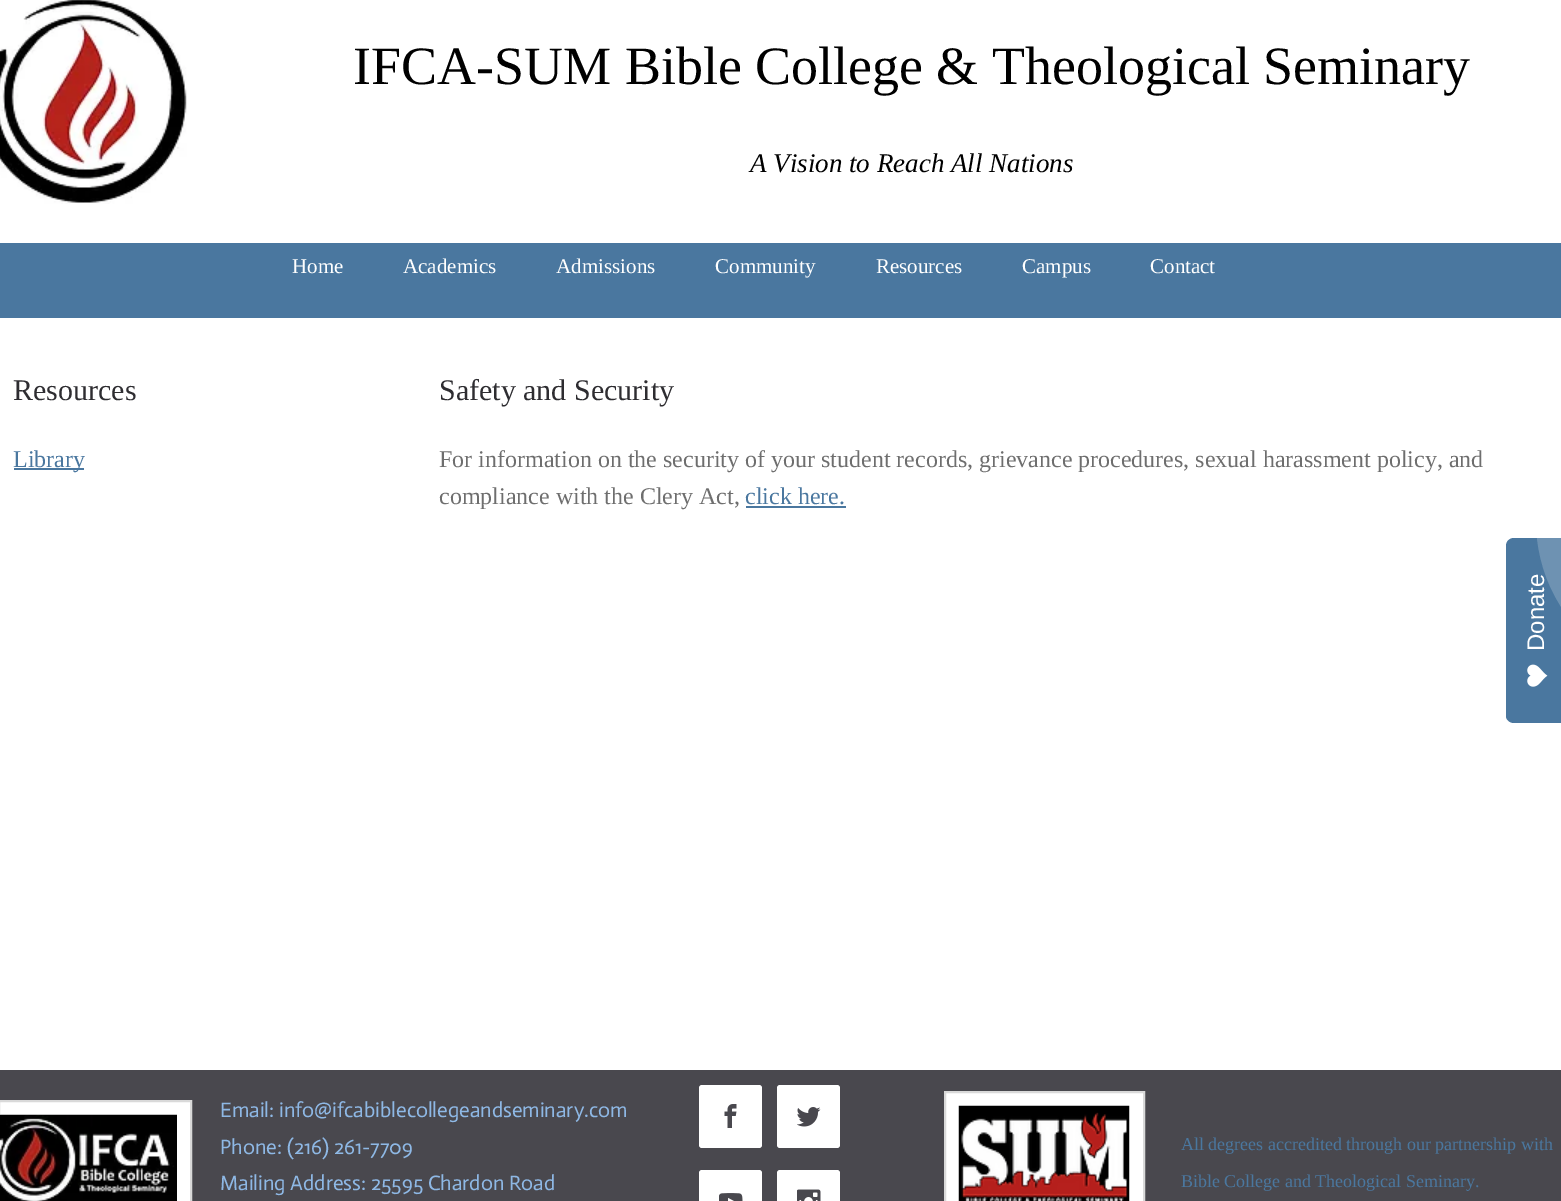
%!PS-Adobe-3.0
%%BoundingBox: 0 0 1561 1201
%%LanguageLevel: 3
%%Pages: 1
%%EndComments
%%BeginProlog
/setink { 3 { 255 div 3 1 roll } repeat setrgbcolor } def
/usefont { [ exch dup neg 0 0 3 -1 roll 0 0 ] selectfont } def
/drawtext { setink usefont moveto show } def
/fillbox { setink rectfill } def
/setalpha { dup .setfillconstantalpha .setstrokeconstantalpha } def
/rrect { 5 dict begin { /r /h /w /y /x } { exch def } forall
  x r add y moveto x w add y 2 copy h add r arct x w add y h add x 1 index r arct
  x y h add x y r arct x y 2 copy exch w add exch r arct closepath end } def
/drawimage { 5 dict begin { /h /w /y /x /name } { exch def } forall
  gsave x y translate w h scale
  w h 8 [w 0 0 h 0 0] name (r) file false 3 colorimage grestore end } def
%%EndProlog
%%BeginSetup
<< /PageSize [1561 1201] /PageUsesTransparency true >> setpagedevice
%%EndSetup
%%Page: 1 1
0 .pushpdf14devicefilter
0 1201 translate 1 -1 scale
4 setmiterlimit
0 0 1561 1201 255 255 255 fillbox
(assets/img1.rgb) 0 0 187 204 drawimage
(IFCA-SUM Bible College & Theological Seminary) 353 84 /LiberationSerif-Regular 54 0 0 0 drawtext
(A Vision to Reach All Nations) 750 172 /LiberationSerif-Italic 27 0 0 0 drawtext
0 243 1561 75 74 119 159 fillbox
(Home) 292 273 /LiberationSerif-Regular 21 255 255 255 drawtext
(Academics) 403 273 /LiberationSerif-Regular 21 255 255 255 drawtext
(Admissions) 556 273 /LiberationSerif-Regular 21 255 255 255 drawtext
(Community) 715 273 /LiberationSerif-Regular 21 255 255 255 drawtext
(Resources) 876 273 /LiberationSerif-Regular 21 255 255 255 drawtext
(Campus) 1022 273 /LiberationSerif-Regular 21 255 255 255 drawtext
(Contact) 1150 273 /LiberationSerif-Regular 21 255 255 255 drawtext
(Resources) 13 400 /LiberationSerif-Regular 30 46 45 49 drawtext
14 468 70 2 74 119 159 fillbox
(Library) 13 467 /LiberationSerif-Regular 24 74 119 159 drawtext
(Safety and Security) 439 400 /LiberationSerif-Regular 30 46 45 49 drawtext
(For information on the security of your student records, grievance procedures, sexual harassment policy, and) 439 467 /LiberationSerif-Regular 24 110 110 110 drawtext
(compliance with the Clery Act,) 439 504 /LiberationSerif-Regular 24 110 110 110 drawtext
(click here.) 745 504 /LiberationSerif-Regular 24 74 119 159 drawtext
746 506 100 2 74 119 159 fillbox
0 1070 1561 131 73 72 78 fillbox
255 255 255 setink
-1 1101 moveto 191 1101 lineto 191 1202 lineto -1 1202 lineto closepath gsave fill grestore
217 217 217 setink
2 setlinewidth
stroke
(assets/img2.rgb) 0 1114 177 87 drawimage
(Email: info@ifcabiblecollegeandseminary.com) 220 1117 /Actor-Regular 21 142 184 229 drawtext
(Phone: \(216\) 261-7709) 220 1154 /Actor-Regular 21 142 184 229 drawtext
(Mailing Address: 25595 Chardon Road) 220 1190 /Actor-Regular 21 142 184 229 drawtext
255 255 255 setink
699 1085 63 63 3 rrect fill
(assets/img3.rgb) 724 1104 13 24 drawimage
777 1085 63 63 3 rrect fill
(assets/img4.rgb) 797 1107 24 20 drawimage
699 1170 63 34 3 rrect fill
(assets/img5.rgb) 719 1193 24 8 drawimage
777 1170 63 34 3 rrect fill
(assets/img6.rgb) 797 1189 24 12 drawimage
945 1092 moveto 1144 1092 lineto 1144 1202 lineto 945 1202 lineto closepath gsave fill grestore
217 217 217 setink
stroke
(assets/img7.rgb) 958 1105 172 96 drawimage
(All degrees accredited through our partnership with) 1181 1150 /LiberationSerif-Regular 18 74 119 159 drawtext
(Bible College and Theological Seminary.) 1181 1187 /LiberationSerif-Regular 18 74 119 159 drawtext
1506 716 moveto 1506 546 lineto 1506 541 1510 538 1514 538 curveto 1559 538 lineto 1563 538 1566 541 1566 546 curveto 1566 716 lineto 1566 720 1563 723 1559 723 curveto 1514 723 lineto 1510 723 1506 720 1506 716 curveto closepath fill
/LiberationSans-Regular 24 usefont
255 255 255 setink
gsave 1544 651 translate -90 rotate 0 0 moveto (Donate) show grestore
0.2 setalpha
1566 614 moveto 1550 592 1540 566 1537 538 curveto 1559 538 lineto 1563 538 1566 541 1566 546 curveto closepath fill
1 setalpha
(assets/img8.rgb) 1527 664 21 23 drawimage
.poppdf14devicefilter showpage
%%EOF
